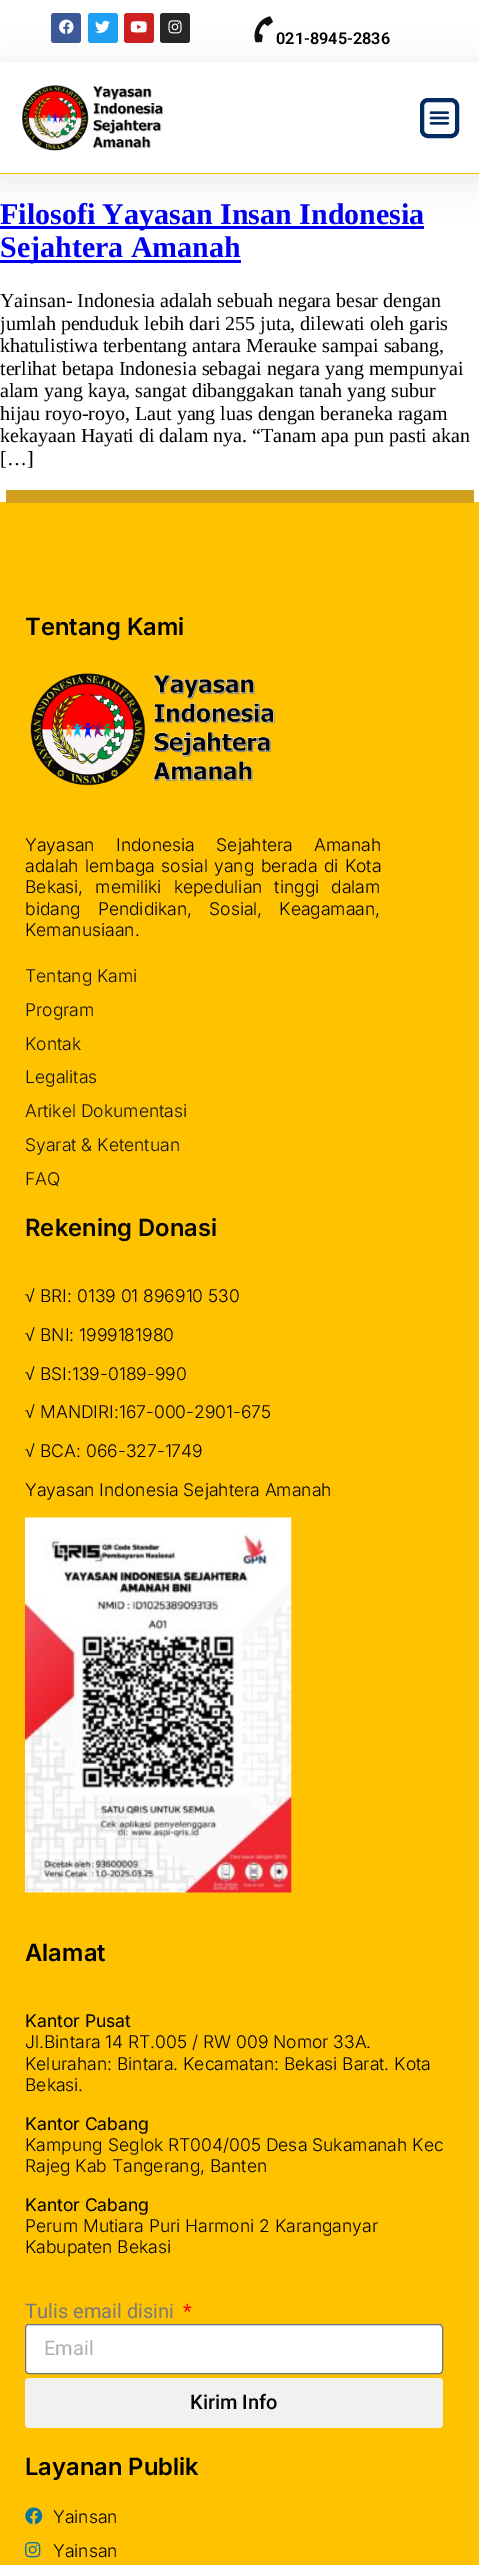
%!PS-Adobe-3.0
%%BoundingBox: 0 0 479 2565
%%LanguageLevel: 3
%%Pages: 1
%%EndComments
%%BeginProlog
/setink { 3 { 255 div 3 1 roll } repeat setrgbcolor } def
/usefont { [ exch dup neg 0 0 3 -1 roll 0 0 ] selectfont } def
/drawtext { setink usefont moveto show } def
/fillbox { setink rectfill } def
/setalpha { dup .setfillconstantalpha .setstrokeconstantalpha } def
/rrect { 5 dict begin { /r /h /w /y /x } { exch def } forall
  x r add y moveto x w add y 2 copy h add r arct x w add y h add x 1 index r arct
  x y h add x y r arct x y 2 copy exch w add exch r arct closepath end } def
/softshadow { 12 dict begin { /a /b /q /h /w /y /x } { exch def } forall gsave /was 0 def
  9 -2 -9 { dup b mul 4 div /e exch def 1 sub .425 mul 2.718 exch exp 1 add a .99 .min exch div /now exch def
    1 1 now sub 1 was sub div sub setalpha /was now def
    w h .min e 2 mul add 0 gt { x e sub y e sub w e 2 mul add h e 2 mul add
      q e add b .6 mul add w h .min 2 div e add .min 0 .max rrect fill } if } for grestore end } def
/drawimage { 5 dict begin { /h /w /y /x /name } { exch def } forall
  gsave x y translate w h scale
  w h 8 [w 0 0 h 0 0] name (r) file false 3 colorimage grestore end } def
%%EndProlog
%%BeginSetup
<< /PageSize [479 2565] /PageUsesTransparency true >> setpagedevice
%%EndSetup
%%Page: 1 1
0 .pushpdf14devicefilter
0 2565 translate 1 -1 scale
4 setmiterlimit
0 0 479 2565 255 255 255 fillbox
59 89 152 setink
51 13 30 30 3 rrect fill
(assets/img3.rgb) 59 19 15 15 drawimage
29 161 242 setink
88 13 30 30 3 rrect fill
(assets/img4.rgb) 95 20 15 13 drawimage
205 32 31 setink
124 13 30 30 3 rrect fill
(assets/img5.rgb) 130 21 17 12 drawimage
38 38 38 setink
160 13 30 30 3 rrect fill
(assets/img6.rgb) 168 20 14 14 drawimage
(assets/img7.rgb) 254 16 19 27 drawimage
0 226 424 3 0 0 238 fillbox
0 0 0 setink
0 69 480 110 0 19 0.1 softshadow
0 63 479 110 255 255 255 fillbox
(assets/img1.rgb) 22 85 142 66 drawimage
4 43 97 setink
4 setlinewidth
422 100 35 36 6 rrect stroke
(assets/img2.rgb) 429 111 21 14 drawimage
255 194 0 setink
-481 174 moveto 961 174 lineto 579 173 lineto -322 173 lineto closepath fill
(021-8945-2836) 276 44 /Roboto-SemiBold 16.25 0 0 0 drawtext
(Filosofi Yayasan Insan Indonesia) 0 224 /LiberationSerif-Bold 30 0 0 238 drawtext
0 260 241 3 0 0 238 fillbox
(Sejahtera Amanah) 0 257 /LiberationSerif-Bold 30 0 0 238 drawtext
(Yainsan- Indonesia adalah sebuah negara besar dengan) 0 307 /LiberationSerif-Regular 20 0 0 0 drawtext
(jumlah penduduk lebih dari 255 juta, dilewati oleh garis) 0 330 /LiberationSerif-Regular 20 0 0 0 drawtext
(khatulistiwa terbentang antara Merauke sampai sabang,) 0 352 /LiberationSerif-Regular 20 0 0 0 drawtext
(terlihat betapa Indonesia sebagai negara yang mempunyai) 0 375 /LiberationSerif-Regular 20 0 0 0 drawtext
(alam yang kaya, sangat dibanggakan tanah yang subur) 0 397 /LiberationSerif-Regular 20 0 0 0 drawtext
(hijau royo-royo, Laut yang luas dengan beraneka ragam) 0 420 /LiberationSerif-Regular 20 0 0 0 drawtext
(kekayaan Hayati di dalam nya. “Tanam apa pun pasti akan) 0 442 /LiberationSerif-Regular 20 0 0 0 drawtext
([…]) 0 465 /LiberationSerif-Regular 20 0 0 0 drawtext
gsave 12 502 moveto 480 502 lineto 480 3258 lineto 0 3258 lineto 0 502 lineto closepath clip newpath
<< /ShadingType 2 /ColorSpace /DeviceRGB /Coords [-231 587 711 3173] /Extend [true true] /Function << /FunctionType 3 /Domain [0 1] /Functions [<< /FunctionType 2 /Domain [0 1] /C0 [1 0.761 0] /C1 [1 0.761 0] /N 1 >> << /FunctionType 2 /Domain [0 1] /C0 [1 0.761 0] /C1 [1 1 1] /N 1 >>] /Bounds [0.82] /Encode [0 1 0 1] >> >> shfill grestore
6 490 468 13 209 158 29 fillbox
(Tentang Kami) 25 635 /Inter-SemiBold 23.75 0 0 0 drawtext
(assets/img8.rgb) 30 673 245 113 drawimage
/Inter-Light 17.5 usefont
25 851 moveto 16.5 0 32 (Yayasan Indonesia Sejahtera Amanah) widthshow
25 872 moveto 1.5 0 32 (adalah lembaga sosial yang berada di Kota) widthshow
25 893 moveto 7 0 32 (Bekasi, memiliki kepedulian tinggi dalam) widthshow
25 915 moveto 12 0 32 (bidang Pendidikan, Sosial, Keagamaan,) widthshow
(Kemanusiaan.) 25 936 /Inter-Light 17.5 0 0 0 drawtext
(Tentang Kami) 25 982 /Inter-Light 17.5 17 17 16 drawtext
(Program) 25 1016 /Inter-Light 17.5 17 17 16 drawtext
(Kontak) 25 1050 /Inter-Light 17.5 17 17 16 drawtext
(Legalitas) 25 1083 /Inter-Light 17.5 17 17 16 drawtext
(Artikel Dokumentasi) 25 1117 /Inter-Light 17.5 17 17 16 drawtext
(Syarat & Ketentuan) 25 1151 /Inter-Light 17.5 17 17 16 drawtext
(FAQ) 25 1185 /Inter-Light 17.5 17 17 16 drawtext
(Rekening Donasi) 25 1236 /Inter-SemiBold 23.75 7 5 5 drawtext
(√) 25 1302 /LiberationSans-Regular 17.5 0 0 0 drawtext
(BRI: 0139 01 896910 530) 40 1302 /Inter-Light 17.5 0 0 0 drawtext
(√) 25 1341 /LiberationSans-Regular 17.5 0 0 0 drawtext
(BNI: 1999181980) 40 1341 /Inter-Light 17.5 0 0 0 drawtext
(√) 25 1380 /LiberationSans-Regular 17.5 0 0 0 drawtext
(BSI:139-0189-990) 40 1380 /Inter-Light 17.5 0 0 0 drawtext
(√) 25 1418 /LiberationSans-Regular 17.5 0 0 0 drawtext
(MANDIRI:167-000-2901-675) 40 1418 /Inter-Light 17.5 0 0 0 drawtext
(√) 25 1457 /LiberationSans-Regular 17.5 0 0 0 drawtext
(BCA: 066-327-1749) 40 1457 /Inter-Light 17.5 0 0 0 drawtext
(Yayasan Indonesia Sejahtera Amanah) 25 1496 /Inter-Light 17.5 0 0 0 drawtext
(assets/img9.rgb) 25 1517 267 376 drawimage
(Alamat) 25 1961 /Inter-SemiBold 23.75 0 0 0 drawtext
(Kantor Pusat) 25 2027 /Inter-Regular 17.5 0 0 0 drawtext
(Jl.Bintara 14 RT.005 / RW 009 Nomor 33A.) 25 2048 /Inter-Light 17.5 0 0 0 drawtext
(Kelurahan: Bintara. Kecamatan: Bekasi Barat. Kota) 25 2070 /Inter-Light 17.5 0 0 0 drawtext
(Bekasi.) 25 2091 /Inter-Light 17.5 0 0 0 drawtext
(Kantor Cabang) 25 2130 /Inter-Regular 17.5 0 0 0 drawtext
(Kampung Seglok RT004/005 Desa Sukamanah Kec) 25 2151 /Inter-Light 17.5 0 0 0 drawtext
(Rajeg Kab Tangerang, Banten) 25 2172 /Inter-Light 17.5 0 0 0 drawtext
(Kantor Cabang) 25 2211 /Inter-Regular 17.5 0 0 0 drawtext
(Perum Mutiara Puri Harmoni 2 Karanganyar) 25 2232 /Inter-Light 17.5 0 0 0 drawtext
(Kabupaten Bekasi) 25 2253 /Inter-Light 17.5 0 0 0 drawtext
(Tulis email disini) 25 2318 /Roboto-Regular 20 122 122 122 drawtext
(*) 183 2318 /Roboto-Regular 20 255 0 0 drawtext
255 255 255 setink
25.5 2324.5 417 49 3.5 rrect gsave fill grestore
105 114 125 setink
1 setlinewidth
stroke
(Email) 44 2355 /Roboto-Regular 20 175 175 175 drawtext
241 241 239 setink
25 2378 418 50 4 rrect fill
(Kirim Info) 190 2409 /Roboto-Medium 20 7 5 5 drawtext
(Layanan Publik) 25 2475 /Inter-SemiBold 23.75 0 0 0 drawtext
(assets/img10.rgb) 25 2507 18 18 drawimage
(Yainsan) 53 2523 /Inter-Light 17.5 0 0 0 drawtext
(assets/img11.rgb) 25 2542 16 16 drawimage
(Yainsan) 53 2557 /Inter-Light 17.5 0 0 0 drawtext
.poppdf14devicefilter showpage
%%EOF
